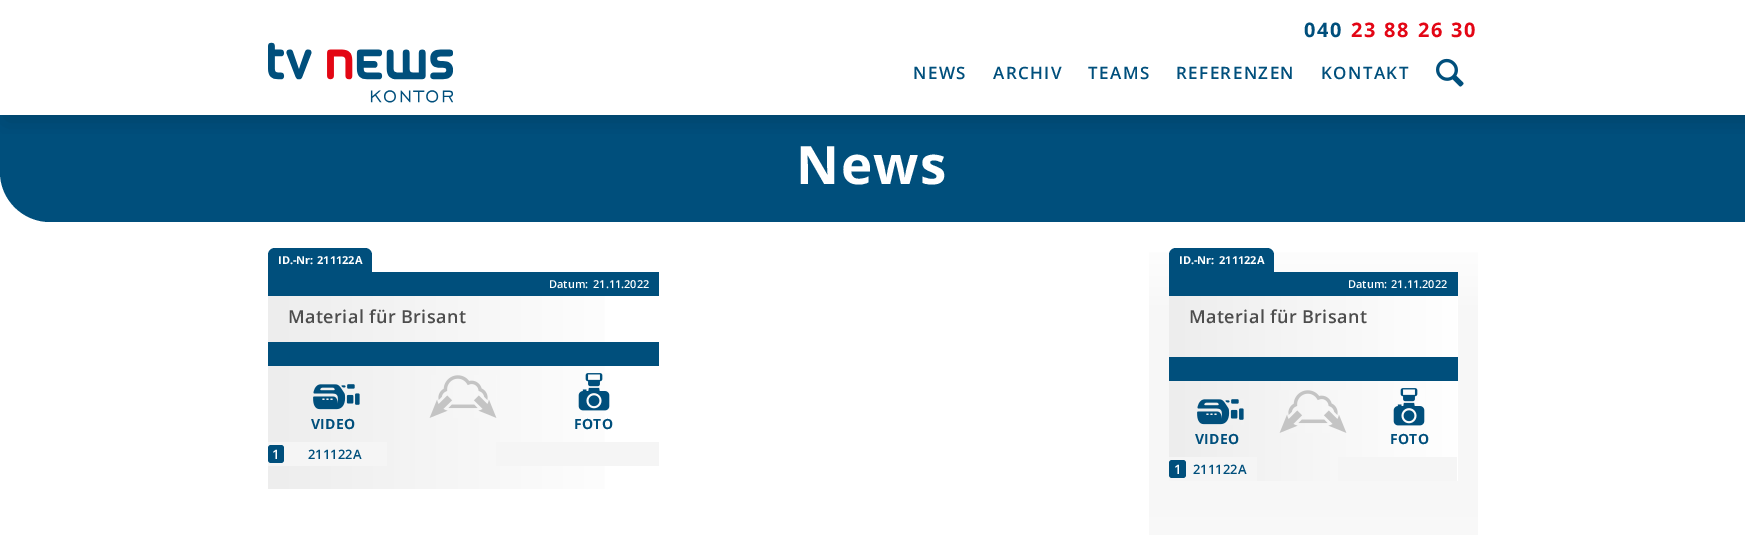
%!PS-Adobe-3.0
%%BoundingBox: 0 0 1745 535
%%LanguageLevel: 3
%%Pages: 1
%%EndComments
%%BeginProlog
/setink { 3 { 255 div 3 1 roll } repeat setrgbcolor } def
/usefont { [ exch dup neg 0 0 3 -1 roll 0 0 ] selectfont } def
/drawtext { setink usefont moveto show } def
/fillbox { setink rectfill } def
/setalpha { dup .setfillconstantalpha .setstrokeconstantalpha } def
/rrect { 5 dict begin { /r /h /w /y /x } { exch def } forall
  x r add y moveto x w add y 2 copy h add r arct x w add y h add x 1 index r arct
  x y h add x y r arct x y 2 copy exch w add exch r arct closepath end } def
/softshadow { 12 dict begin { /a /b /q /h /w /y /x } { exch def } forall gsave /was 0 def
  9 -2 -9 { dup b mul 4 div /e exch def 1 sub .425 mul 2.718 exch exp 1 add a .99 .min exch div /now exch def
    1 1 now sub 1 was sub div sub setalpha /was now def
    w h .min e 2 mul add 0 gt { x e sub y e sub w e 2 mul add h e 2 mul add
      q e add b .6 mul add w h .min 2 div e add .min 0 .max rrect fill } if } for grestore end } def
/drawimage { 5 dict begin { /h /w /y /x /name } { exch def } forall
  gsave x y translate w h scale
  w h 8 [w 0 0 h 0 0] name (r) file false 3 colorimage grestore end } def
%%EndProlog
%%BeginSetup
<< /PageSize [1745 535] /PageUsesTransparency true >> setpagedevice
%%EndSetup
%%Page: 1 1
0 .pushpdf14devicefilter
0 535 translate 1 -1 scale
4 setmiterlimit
0 0 1745 535 255 255 255 fillbox
0 79 124 setink
0 113 moveto 1745 113 lineto 1745 222 lineto 50 222 lineto 22.5 222 0 199.5 0 172 curveto closepath fill
0 113 1745 2 255 255 255 fillbox
gsave
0 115 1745 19 rectclip
0 0 0 setink
5 35 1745 85 0 12.5 0.15 softshadow
grestore
0 16 1745 14 255 255 255 fillbox
/OpenSans-Bold 20 usefont
0 79 124 setink
1304 37 moveto 1.75 0 (040) ashow
227 6 21 setink
1351 37 moveto 1.75 0 (23 88 26 30) ashow
(assets/img1.rgb) 268 42 185 61 drawimage
/OpenSans-SemiBold 17 usefont
0 79 124 setink
913 79 moveto 1.4 0 (NEWS) ashow
993 79 moveto 1.4 0 (ARCHIV) ashow
1088 79 moveto 1.4 0 (TEAMS) ashow
1176 79 moveto 1.4 0 (REFERENZEN) ashow
1321 79 moveto 1.4 0 (KONTAKT) ashow
(assets/img2.rgb) 1436 58 28 29 drawimage
/OpenSans-Bold 53 usefont
255 255 255 setink
796 184 moveto 1.5 0 (News) ashow
gsave 268 296 moveto 605 296 lineto 605 489 lineto 268 489 lineto closepath clip newpath
<< /ShadingType 2 /ColorSpace /DeviceRGB /Coords [268 381 659 381] /Extend [true true] /Function << /FunctionType 2 /Domain [0 1] /C0 [0.929 0.929 0.929] /C1 [1 1 1] /N 1 >> >> shfill grestore
0 79 124 setink
275 248 moveto 365 248 lineto 369 248 372 251 372 255 curveto 372 272 lineto 268 272 lineto 268 255 lineto 268 251 271 248 275 248 curveto closepath fill
(ID.-Nr:) 278 264 /OpenSans-Bold 11 255 255 255 drawtext
(211122A) 317 264 /OpenSans-Bold 11 255 255 255 drawtext
268 272 391 24 0 79 124 fillbox
(Datum:) 549 288 /OpenSans-SemiBold 11 255 255 255 drawtext
(21.11.2022) 593 288 /OpenSans-SemiBold 11 255 255 255 drawtext
/OpenSans-SemiBold 18 usefont
77 77 77 setink
288 323 moveto 0.4 0 (Material für Brisant) ashow
268 342 391 24 0 79 124 fillbox
(assets/img3.rgb) 313 384 47 26 drawimage
/OpenSans-Bold 14 usefont
311 429 moveto 0.25 0 (VIDEO) ashow
268 442 119 24 245 245 245 fillbox
0 79 124 setink
268 445 16 18 3 rrect fill
(1) 272 459 /OpenSans-SemiBold 13 255 255 255 drawtext
(211122A) 308 459 /OpenSans-SemiBold 13 0 79 124 drawtext
(assets/img4.rgb) 429 375 68 43 drawimage
496 442 163 24 245 245 245 fillbox
(assets/img5.rgb) 578 373 32 38 drawimage
/OpenSans-Bold 14 usefont
0 79 124 setink
574 429 moveto 0.25 0 (FOTO) ashow
gsave 1149 252 moveto 1478 252 lineto 1478 535 lineto 1149 535 lineto closepath clip newpath
<< /ShadingType 2 /ColorSpace /DeviceRGB /Coords [1314 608 1314 222] /Extend [true true] /Function << /FunctionType 3 /Domain [0 1] /Functions [<< /FunctionType 2 /Domain [0 1] /C0 [1 1 1] /C1 [0.969 0.969 0.969] /N 1 >> << /FunctionType 2 /Domain [0 1] /C0 [0.969 0.969 0.969] /C1 [0.969 0.969 0.969] /N 1 >> << /FunctionType 2 /Domain [0 1] /C0 [0.969 0.969 0.969] /C1 [1 1 1] /N 1 >>] /Bounds [0.25 0.75] /Encode [0 1 0 1 0 1] >> >> shfill grestore
gsave 1169 296 moveto 1458 296 lineto 1458 481 lineto 1169 481 lineto closepath clip newpath
<< /ShadingType 2 /ColorSpace /DeviceRGB /Coords [1169 377 1458 377] /Extend [true true] /Function << /FunctionType 2 /Domain [0 1] /C0 [0.929 0.929 0.929] /C1 [1 1 1] /N 1 >> >> shfill grestore
1176 248 moveto 1267 248 lineto 1271 248 1274 251 1274 255 curveto 1274 272 lineto 1169 272 lineto 1169 255 lineto 1169 251 1172 248 1176 248 curveto closepath fill
(ID.-Nr:) 1179 264 /OpenSans-Bold 11 255 255 255 drawtext
(211122A) 1219 264 /OpenSans-Bold 11 255 255 255 drawtext
1169 272 289 24 0 79 124 fillbox
(Datum:) 1348 288 /OpenSans-SemiBold 11 255 255 255 drawtext
(21.11.2022) 1391 288 /OpenSans-SemiBold 11 255 255 255 drawtext
/OpenSans-SemiBold 18 usefont
77 77 77 setink
1189 323 moveto 0.4 0 (Material für Brisant) ashow
1169 357 289 24 0 79 124 fillbox
(assets/img6.rgb) 1197 399 47 26 drawimage
/OpenSans-Bold 14 usefont
1195 444 moveto 0.25 0 (VIDEO) ashow
1169 457 88 24 245 245 245 fillbox
0 79 124 setink
1169 460 17 18 3 rrect fill
(1) 1174 474 /OpenSans-SemiBold 13 255 255 255 drawtext
(211122A) 1193 474 /OpenSans-SemiBold 13 0 79 124 drawtext
(assets/img7.rgb) 1279 390 68 43 drawimage
1338 457 119 24 245 245 245 fillbox
(assets/img8.rgb) 1393 388 32 38 drawimage
/OpenSans-Bold 14 usefont
0 79 124 setink
1390 444 moveto 0.25 0 (FOTO) ashow
.poppdf14devicefilter showpage
%%EOF
